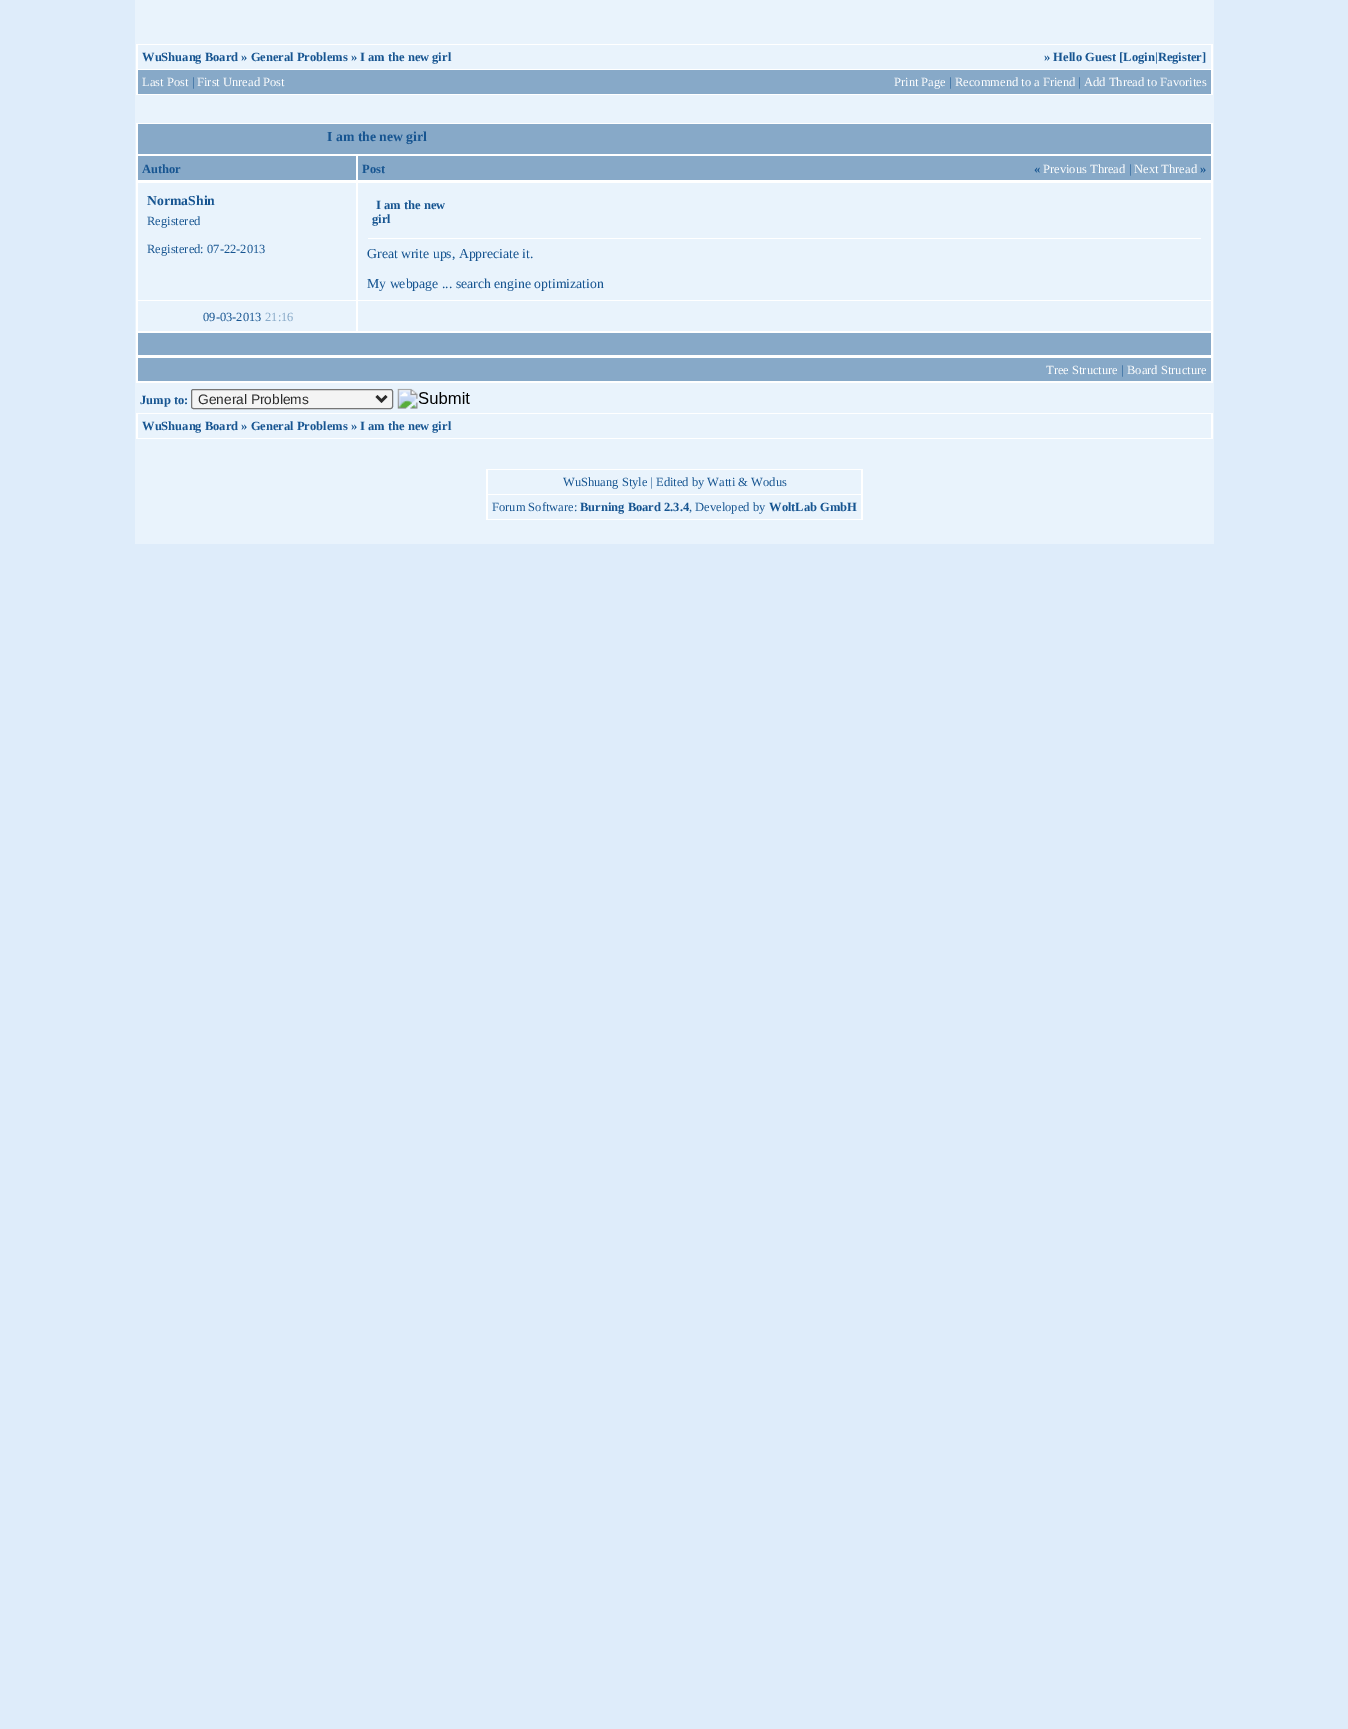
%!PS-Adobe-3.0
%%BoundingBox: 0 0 1348 1729
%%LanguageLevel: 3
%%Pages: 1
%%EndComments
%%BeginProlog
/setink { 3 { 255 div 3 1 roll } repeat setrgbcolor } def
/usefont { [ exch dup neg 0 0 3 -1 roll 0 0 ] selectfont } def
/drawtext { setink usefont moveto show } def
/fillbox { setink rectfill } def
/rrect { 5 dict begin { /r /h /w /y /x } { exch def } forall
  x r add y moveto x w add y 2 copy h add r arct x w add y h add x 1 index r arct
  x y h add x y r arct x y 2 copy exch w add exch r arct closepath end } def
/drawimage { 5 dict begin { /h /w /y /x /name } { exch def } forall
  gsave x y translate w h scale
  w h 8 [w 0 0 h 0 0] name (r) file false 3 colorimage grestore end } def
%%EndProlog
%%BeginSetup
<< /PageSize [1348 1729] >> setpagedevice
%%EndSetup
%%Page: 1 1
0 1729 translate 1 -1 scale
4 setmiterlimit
0 0 1348 1729 222 236 250 fillbox
135 0 1079 544 233 243 252 fillbox
136 44 1077 51 255 255 255 fillbox
138 45 1073 24 233 243 252 fillbox
(WuShuang Board » General Problems » I am the new girl) 142 61 /LiberationSerif-Bold 12.5 23 85 145 drawtext
(» Hello Guest [Login|Register]) 1044 61 /LiberationSerif-Bold 12.5 23 85 145 drawtext
138 70 1073 24 135 169 200 fillbox
(Last Post) 142 86 /LiberationSerif-Regular 12.5 255 255 255 drawtext
(|) 192 86 /LiberationSerif-Regular 12.5 23 85 145 drawtext
(First Unread Post) 197 86 /LiberationSerif-Regular 12.5 255 255 255 drawtext
(Print Page) 894 86 /LiberationSerif-Regular 12.5 255 255 255 drawtext
(|) 949 86 /LiberationSerif-Regular 12.5 23 85 145 drawtext
(Recommend to a Friend) 955 86 /LiberationSerif-Regular 12.5 255 255 255 drawtext
(|) 1078 86 /LiberationSerif-Regular 12.5 23 85 145 drawtext
(Add Thread to Favorites) 1084 86 /LiberationSerif-Regular 12.5 255 255 255 drawtext
136 123 1077 260 255 255 255 fillbox
138 124 1073 30 135 169 200 fillbox
(I am the new girl) 327 141 /LiberationSerif-Bold 13.75 23 85 145 drawtext
138 156 218 24 135 169 200 fillbox
(Author) 142 173 /LiberationSerif-Bold 12.5 23 85 145 drawtext
358 156 853 24 135 169 200 fillbox
(Post) 362 173 /LiberationSerif-Bold 12.5 23 85 145 drawtext
(«) 1034 173 /LiberationSerif-Bold 12.5 23 85 145 drawtext
(Previous Thread) 1043 173 /LiberationSerif-Regular 12.5 255 255 255 drawtext
(|) 1129 173 /LiberationSerif-Regular 12.5 23 85 145 drawtext
(Next Thread) 1134 173 /LiberationSerif-Regular 12.5 255 255 255 drawtext
(») 1200 173 /LiberationSerif-Bold 12.5 23 85 145 drawtext
138 183 218 117 233 243 252 fillbox
(NormaShin) 147 205 /LiberationSerif-Bold 13.75 23 85 145 drawtext
(Registered) 147 225 /LiberationSerif-Regular 12.5 23 85 145 drawtext
(Registered: 07-22-2013) 147 253 /LiberationSerif-Regular 12.5 23 85 145 drawtext
358 183 853 117 233 243 252 fillbox
(I am the new) 376 209 /LiberationSerif-Bold 12.5 23 85 145 drawtext
(girl) 372 223 /LiberationSerif-Bold 12.5 23 85 145 drawtext
368 238 833 1 255 255 255 fillbox
(Great write ups, Appreciate it.) 367 258 /LiberationSerif-Regular 13.75 23 85 145 drawtext
(My webpage ... search engine optimization) 367 288 /LiberationSerif-Regular 13.75 23 85 145 drawtext
138 301 218 30 233 243 252 fillbox
(09-03-2013) 203 321 /LiberationSerif-Regular 12.5 23 85 145 drawtext
(21:16) 265 321 /LiberationSerif-Regular 12.5 135 169 200 drawtext
358 301 853 30 233 243 252 fillbox
138 333 1073 22 135 169 200 fillbox
138 358 1073 23 135 169 200 fillbox
(Tree Structure) 1046 374 /LiberationSerif-Regular 12.5 255 255 255 drawtext
(|) 1121 374 /LiberationSerif-Regular 12.5 23 85 145 drawtext
(Board Structure) 1127 374 /LiberationSerif-Regular 12.5 255 255 255 drawtext
(Jump to:) 140 404 /LiberationSerif-Bold 12.5 23 85 145 drawtext
244 244 244 setink
191.5 389.5 201 19 2 rrect gsave fill grestore
118 118 118 setink
stroke
43 43 43 setink
2.5 setlinewidth
376.5 396 moveto 381.5 401 lineto 386.5 396 lineto stroke
(General Problems) 198 404 /LiberationSans-Regular 13.75 43 43 43 drawtext
(assets/img1.rgb) 397 388 73 21 drawimage
136 413 1077 26 255 255 255 fillbox
138 414 1073 24 233 243 252 fillbox
(WuShuang Board » General Problems » I am the new girl) 142 430 /LiberationSerif-Bold 12.5 23 85 145 drawtext
486 469 377 51 255 255 255 fillbox
488 470 373 24 233 243 252 fillbox
(WuShuang Style | Edited by Watti & Wodus) 563 486 /LiberationSerif-Regular 12.5 23 85 145 drawtext
488 495 373 24 233 243 252 fillbox
(Forum Software:) 492 511 /LiberationSerif-Regular 12.5 23 85 145 drawtext
(Burning Board 2.3.4) 580 511 /LiberationSerif-Bold 12.5 23 85 145 drawtext
(, Developed by) 689 511 /LiberationSerif-Regular 12.5 23 85 145 drawtext
(WoltLab GmbH) 769 511 /LiberationSerif-Bold 12.5 23 85 145 drawtext
showpage
%%EOF
